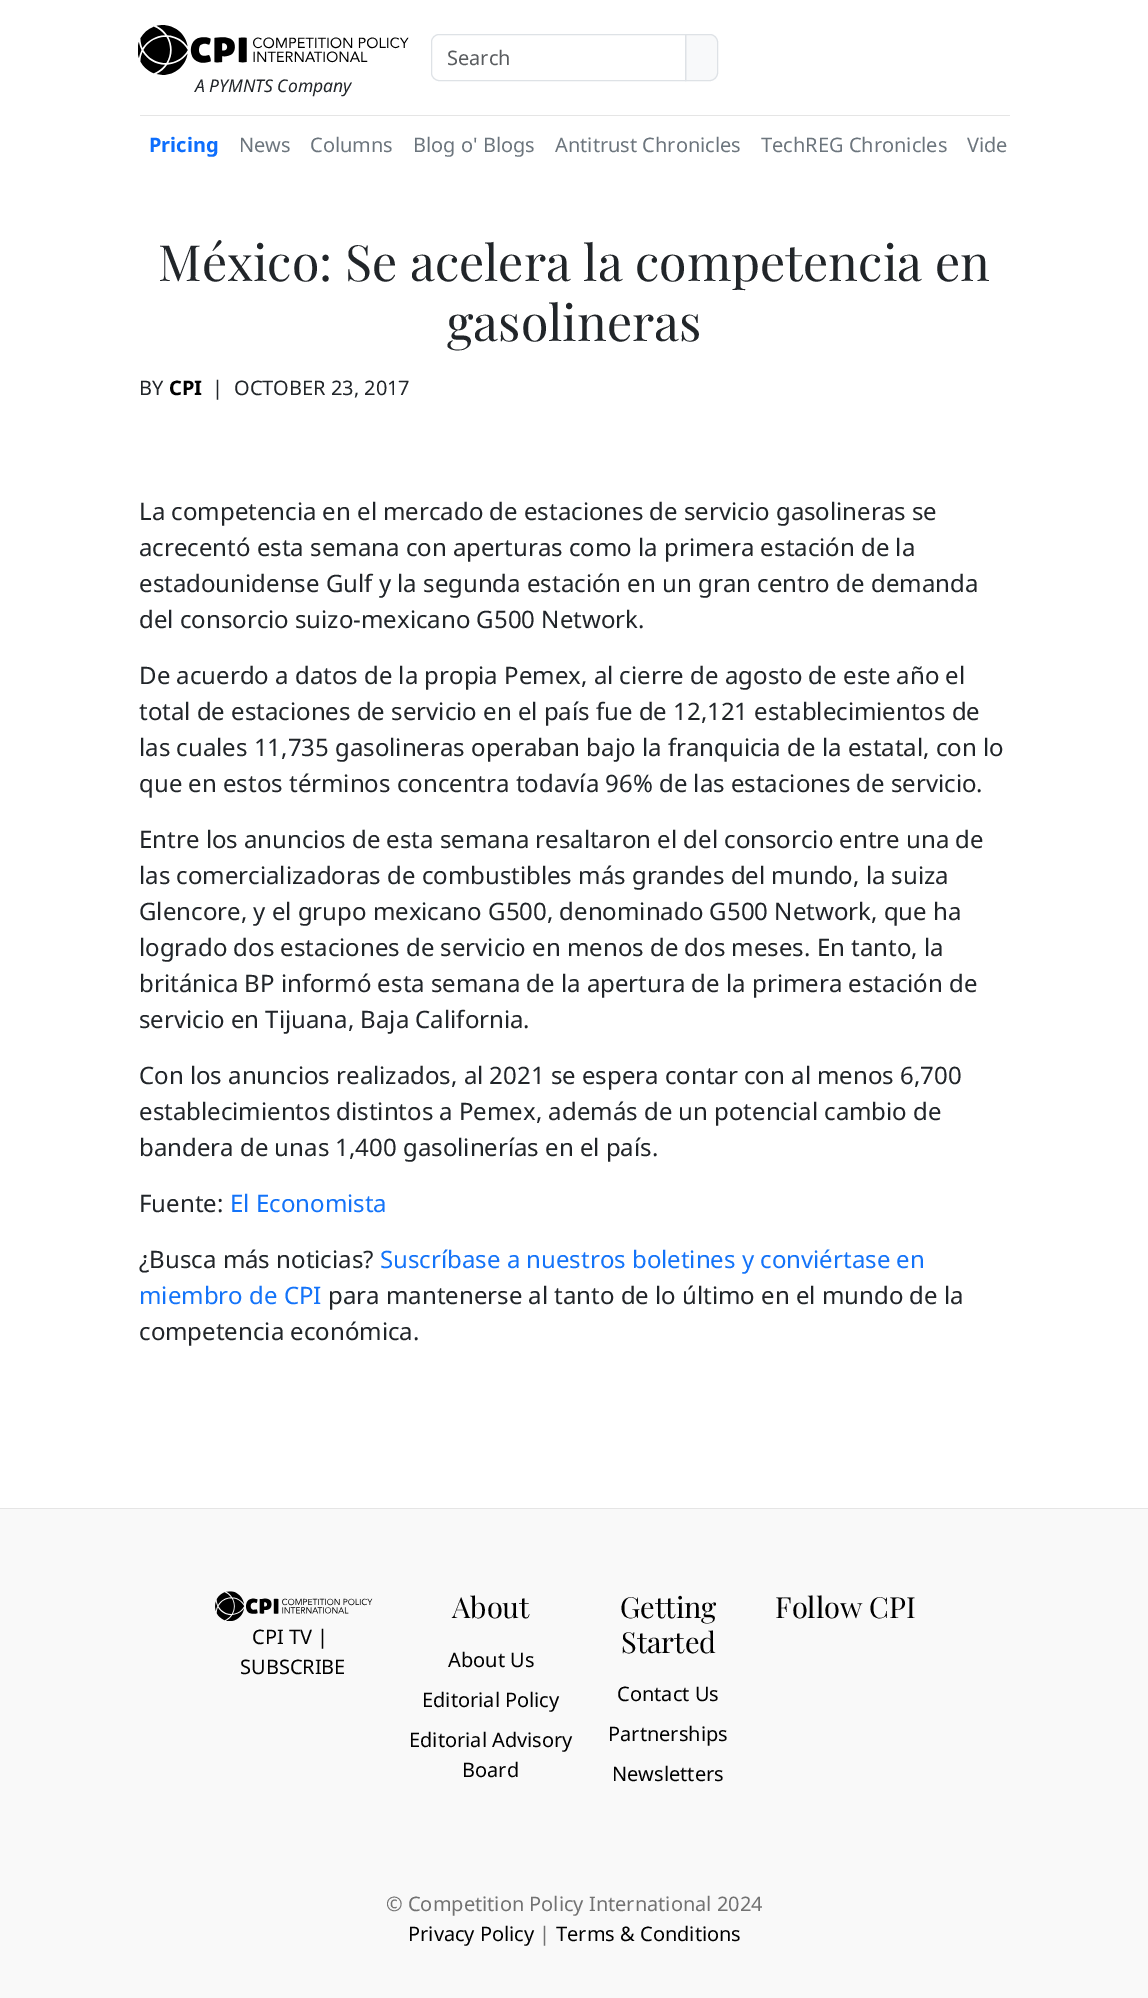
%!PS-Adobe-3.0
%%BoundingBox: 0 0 1148 1998
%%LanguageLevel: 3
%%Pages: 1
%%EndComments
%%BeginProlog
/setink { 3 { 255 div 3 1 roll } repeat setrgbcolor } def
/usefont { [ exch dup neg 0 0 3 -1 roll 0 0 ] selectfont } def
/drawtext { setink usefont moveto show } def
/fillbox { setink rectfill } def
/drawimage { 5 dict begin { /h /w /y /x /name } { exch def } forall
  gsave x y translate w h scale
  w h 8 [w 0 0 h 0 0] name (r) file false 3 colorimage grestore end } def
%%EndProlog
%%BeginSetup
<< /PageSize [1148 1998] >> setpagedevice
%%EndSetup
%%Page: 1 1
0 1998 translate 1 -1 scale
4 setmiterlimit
0 0 1148 1998 255 255 255 fillbox
140 115 870 1 229 229 229 fillbox
248 249 250 setink
685.5 34.5 moveto 710 34.5 lineto 714 34.5 717.5 38 717.5 42 curveto 717.5 73 lineto 717.5 77 714 80.5 710 80.5 curveto 685.5 80.5 lineto closepath gsave fill grestore
222 226 230 setink
stroke
439 34.5 moveto 685.5 34.5 lineto 685.5 80.5 lineto 439 80.5 lineto 435 80.5 431.5 77 431.5 73 curveto 431.5 42 lineto 431.5 38 435 34.5 439 34.5 curveto closepath stroke
(Search) 447 65 /NotoSans-Regular 20 89 92 95 drawtext
(assets/img1.rgb) 138 25 271 50 drawimage
(A PYMNTS Company) 195 92 /NotoSans-Italic 17.5 33 37 41 drawtext
(Pricing) 149 152 /NotoSans-Bold 20 13 110 253 drawtext
(News) 239 152 /NotoSans-Regular 20 108 117 125 drawtext
(Columns) 310 152 /NotoSans-Regular 20 108 117 125 drawtext
(Blog o' Blogs) 413 152 /NotoSans-Regular 20 108 117 125 drawtext
(Antitrust Chronicles) 555 152 /NotoSans-Regular 20 108 117 125 drawtext
(TechREG Chronicles) 761 152 /NotoSans-Regular 20 108 117 125 drawtext
(Vide) 967 152 /NotoSans-Regular 20 108 117 125 drawtext
(México: Se acelera la competencia en) 158 281 /PlayfairDisplay-Regular 50 33 37 41 drawtext
(gasolineras) 447 341 /PlayfairDisplay-Regular 50 33 37 41 drawtext
(BY) 139 395 /NotoSans-Regular 20 33 37 41 drawtext
(CPI) 169 395 /NotoSans-Bold 20 0 0 0 drawtext
(|) 212 395 /NotoSans-Regular 20 33 37 41 drawtext
(OCTOBER 23, 2017) 234 395 /NotoSans-Regular 20 33 37 41 drawtext
(La competencia en el mercado de estaciones de servicio gasolineras se) 139 520 /NotoSans-Regular 24 33 37 41 drawtext
(acrecentó esta semana con aperturas como la primera estación de la) 139 556 /NotoSans-Regular 24 33 37 41 drawtext
(estadounidense Gulf y la segunda estación en un gran centro de demanda) 139 592 /NotoSans-Regular 24 33 37 41 drawtext
(del consorcio suizo-mexicano G500 Network.) 139 628 /NotoSans-Regular 24 33 37 41 drawtext
(De acuerdo a datos de la propia Pemex, al cierre de agosto de este año el) 139 684 /NotoSans-Regular 24 33 37 41 drawtext
(total de estaciones de servicio en el país fue de 12,121 establecimientos de) 139 720 /NotoSans-Regular 24 33 37 41 drawtext
(las cuales 11,735 gasolineras operaban bajo la franquicia de la estatal, con lo) 139 756 /NotoSans-Regular 24 33 37 41 drawtext
(que en estos términos concentra todavía 96% de las estaciones de servicio.) 139 792 /NotoSans-Regular 24 33 37 41 drawtext
(Entre los anuncios de esta semana resaltaron el del consorcio entre una de) 139 848 /NotoSans-Regular 24 33 37 41 drawtext
(las comercializadoras de combustibles más grandes del mundo, la suiza) 139 884 /NotoSans-Regular 24 33 37 41 drawtext
(Glencore, y el grupo mexicano G500, denominado G500 Network, que ha) 139 920 /NotoSans-Regular 24 33 37 41 drawtext
(logrado dos estaciones de servicio en menos de dos meses. En tanto, la) 139 956 /NotoSans-Regular 24 33 37 41 drawtext
(británica BP informó esta semana de la apertura de la primera estación de) 139 992 /NotoSans-Regular 24 33 37 41 drawtext
(servicio en Tijuana, Baja California.) 139 1028 /NotoSans-Regular 24 33 37 41 drawtext
(Con los anuncios realizados, al 2021 se espera contar con al menos 6,700) 139 1084 /NotoSans-Regular 24 33 37 41 drawtext
(establecimientos distintos a Pemex, además de un potencial cambio de) 139 1120 /NotoSans-Regular 24 33 37 41 drawtext
(bandera de unas 1,400 gasolinerías en el país.) 139 1156 /NotoSans-Regular 24 33 37 41 drawtext
(Fuente:) 139 1212 /NotoSans-Regular 24 33 37 41 drawtext
(El Economista) 230 1212 /NotoSans-Regular 24 19 115 249 drawtext
(¿Busca más noticias?) 139 1268 /NotoSans-Regular 24 33 37 41 drawtext
(Suscríbase a nuestros boletines y conviértase en) 380 1268 /NotoSans-Regular 24 19 115 249 drawtext
(miembro de CPI) 139 1304 /NotoSans-Regular 24 19 115 249 drawtext
(para mantenerse al tanto de lo último en el mundo de la) 328 1304 /NotoSans-Regular 24 33 37 41 drawtext
(competencia económica.) 139 1340 /NotoSans-Regular 24 33 37 41 drawtext
0 1509 1148 489 249 249 249 fillbox
0 1508 1148 1 229 229 229 fillbox
(assets/img2.rgb) 215 1591 158 30 drawimage
(CPI TV |) 252 1644 /NotoSans-Regular 20 0 0 0 drawtext
(SUBSCRIBE) 240 1674 /NotoSans-Regular 20 0 0 0 drawtext
(About) 452 1618 /PlayfairDisplay-Regular 29 0 0 0 drawtext
(About Us) 448 1667 /NotoSans-Regular 20 0 0 0 drawtext
(Editorial Policy) 422 1707 /NotoSans-Regular 20 0 0 0 drawtext
(Editorial Advisory) 409 1747 /NotoSans-Regular 20 0 0 0 drawtext
(Board) 462 1777 /NotoSans-Regular 20 0 0 0 drawtext
(Getting) 620 1618 /PlayfairDisplay-Regular 29 0 0 0 drawtext
(Started) 621 1653 /PlayfairDisplay-Regular 29 0 0 0 drawtext
(Contact Us) 617 1701 /NotoSans-Regular 20 0 0 0 drawtext
(Partnerships) 608 1741 /NotoSans-Regular 20 0 0 0 drawtext
(Newsletters) 612 1781 /NotoSans-Regular 20 0 0 0 drawtext
(Follow CPI) 775 1618 /PlayfairDisplay-Regular 29 0 0 0 drawtext
(© Competition Policy International 2024) 386 1911 /NotoSans-Regular 20 114 114 114 drawtext
(Privacy Policy) 408 1941 /NotoSans-Regular 20 0 0 0 drawtext
(|) 539 1941 /NotoSans-Regular 20 114 114 114 drawtext
(Terms & Conditions) 556 1941 /NotoSans-Regular 20 0 0 0 drawtext
showpage
%%EOF
